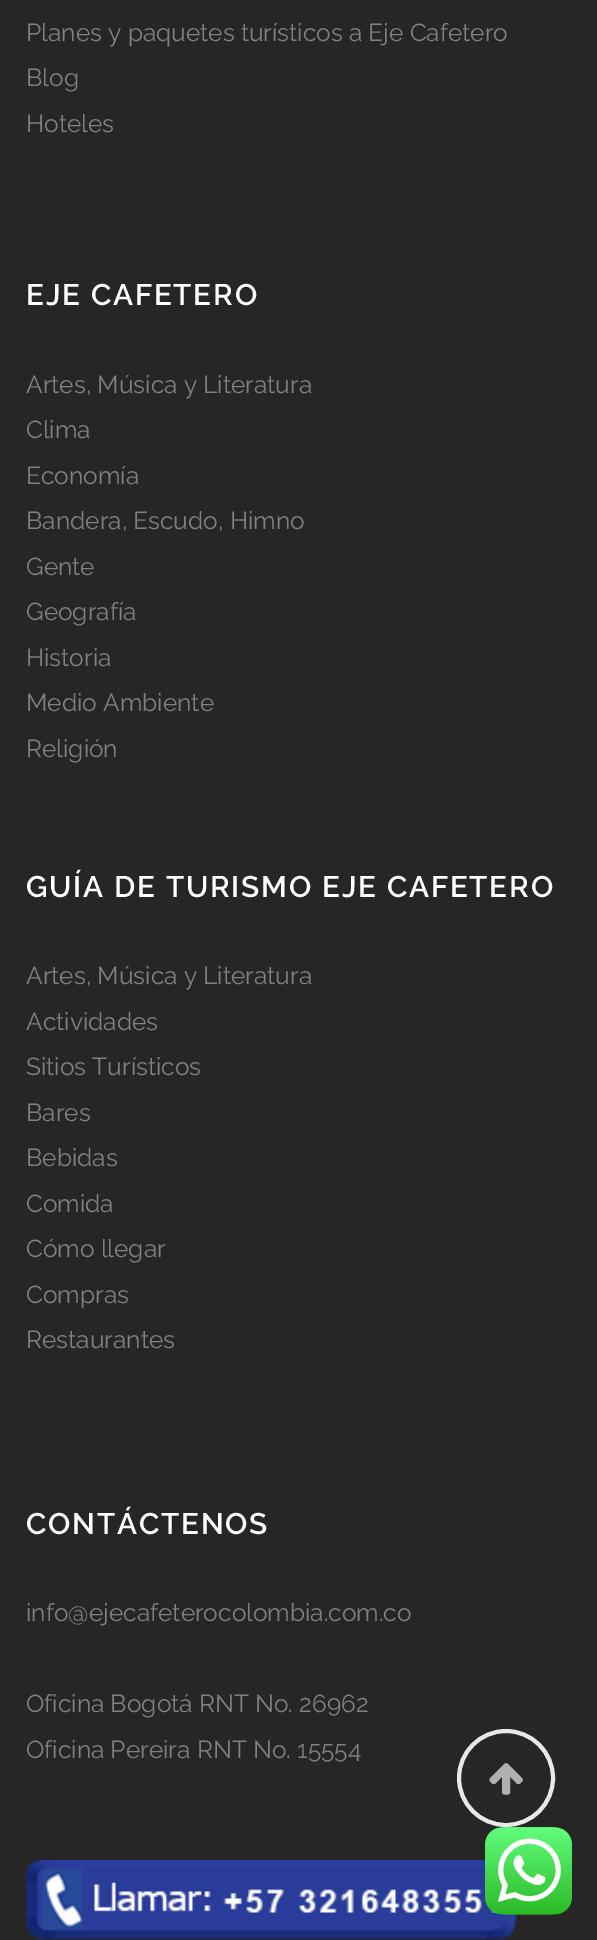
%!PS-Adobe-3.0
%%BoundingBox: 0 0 597 1940
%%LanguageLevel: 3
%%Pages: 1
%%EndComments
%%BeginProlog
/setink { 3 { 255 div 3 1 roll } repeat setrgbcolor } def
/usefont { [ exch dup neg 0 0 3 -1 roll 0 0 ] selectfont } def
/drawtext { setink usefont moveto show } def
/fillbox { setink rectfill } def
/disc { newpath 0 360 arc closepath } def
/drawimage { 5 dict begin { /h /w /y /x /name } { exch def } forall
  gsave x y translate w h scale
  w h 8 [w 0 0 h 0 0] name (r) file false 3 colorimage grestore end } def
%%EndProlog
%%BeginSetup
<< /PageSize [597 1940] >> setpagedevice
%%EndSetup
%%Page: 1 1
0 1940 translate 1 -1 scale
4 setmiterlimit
0 0 597 1940 38 38 38 fillbox
(Planes y paquetes turísticos a Eje Cafetero) 26 41 /Raleway-Regular 24.5 129 129 129 drawtext
(Blog) 26 86 /Raleway-Regular 24.5 129 129 129 drawtext
(Hoteles) 26 132 /Raleway-Regular 24.5 129 129 129 drawtext
/Raleway-SemiBold 29.75 usefont
255 255 255 setink
26 305 moveto 1.75 0 (EJE CAFETERO) ashow
(Artes, Música y Literatura) 26 393 /Raleway-Regular 24.5 129 129 129 drawtext
(Clima) 26 438 /Raleway-Regular 24.5 129 129 129 drawtext
(Economía) 26 484 /Raleway-Regular 24.5 129 129 129 drawtext
(Bandera, Escudo, Himno) 26 529 /Raleway-Regular 24.5 129 129 129 drawtext
(Gente) 26 575 /Raleway-Regular 24.5 129 129 129 drawtext
(Geografía) 26 620 /Raleway-Regular 24.5 129 129 129 drawtext
(Historia) 26 666 /Raleway-Regular 24.5 129 129 129 drawtext
(Medio Ambiente) 26 711 /Raleway-Regular 24.5 129 129 129 drawtext
(Religión) 26 757 /Raleway-Regular 24.5 129 129 129 drawtext
/Raleway-SemiBold 29.75 usefont
255 255 255 setink
26 897 moveto 1.75 0 (GUÍA DE TURISMO EJE CAFETERO) ashow
(Artes, Música y Literatura) 26 984 /Raleway-Regular 24.5 129 129 129 drawtext
(Actividades) 26 1030 /Raleway-Regular 24.5 129 129 129 drawtext
(Sitios Turísticos) 26 1075 /Raleway-Regular 24.5 129 129 129 drawtext
(Bares) 26 1121 /Raleway-Regular 24.5 129 129 129 drawtext
(Bebidas) 26 1166 /Raleway-Regular 24.5 129 129 129 drawtext
(Comida) 26 1212 /Raleway-Regular 24.5 129 129 129 drawtext
(Cómo llegar) 26 1257 /Raleway-Regular 24.5 129 129 129 drawtext
(Compras) 26 1303 /Raleway-Regular 24.5 129 129 129 drawtext
(Restaurantes) 26 1348 /Raleway-Regular 24.5 129 129 129 drawtext
/Raleway-SemiBold 29.75 usefont
255 255 255 setink
26 1534 moveto 1.75 0 (CONTÁCTENOS) ashow
(info@ejecafeterocolombia.com.co) 26 1621 /Raleway-Regular 24.5 129 129 129 drawtext
(Oficina Bogotá RNT No. 26962) 26 1712 /Raleway-Regular 24.5 129 129 129 drawtext
(Oficina Pereira RNT No. 15554) 26 1758 /Raleway-Regular 24.5 129 129 129 drawtext
(assets/img1.rgb) 26 1860 491 79 drawimage
232 232 232 setink
4 setlinewidth
506 1778 47 disc stroke
(assets/img2.rgb) 489 1763 34 32 drawimage
(assets/img3.rgb) 485 1827 87 88 drawimage
showpage
%%EOF
